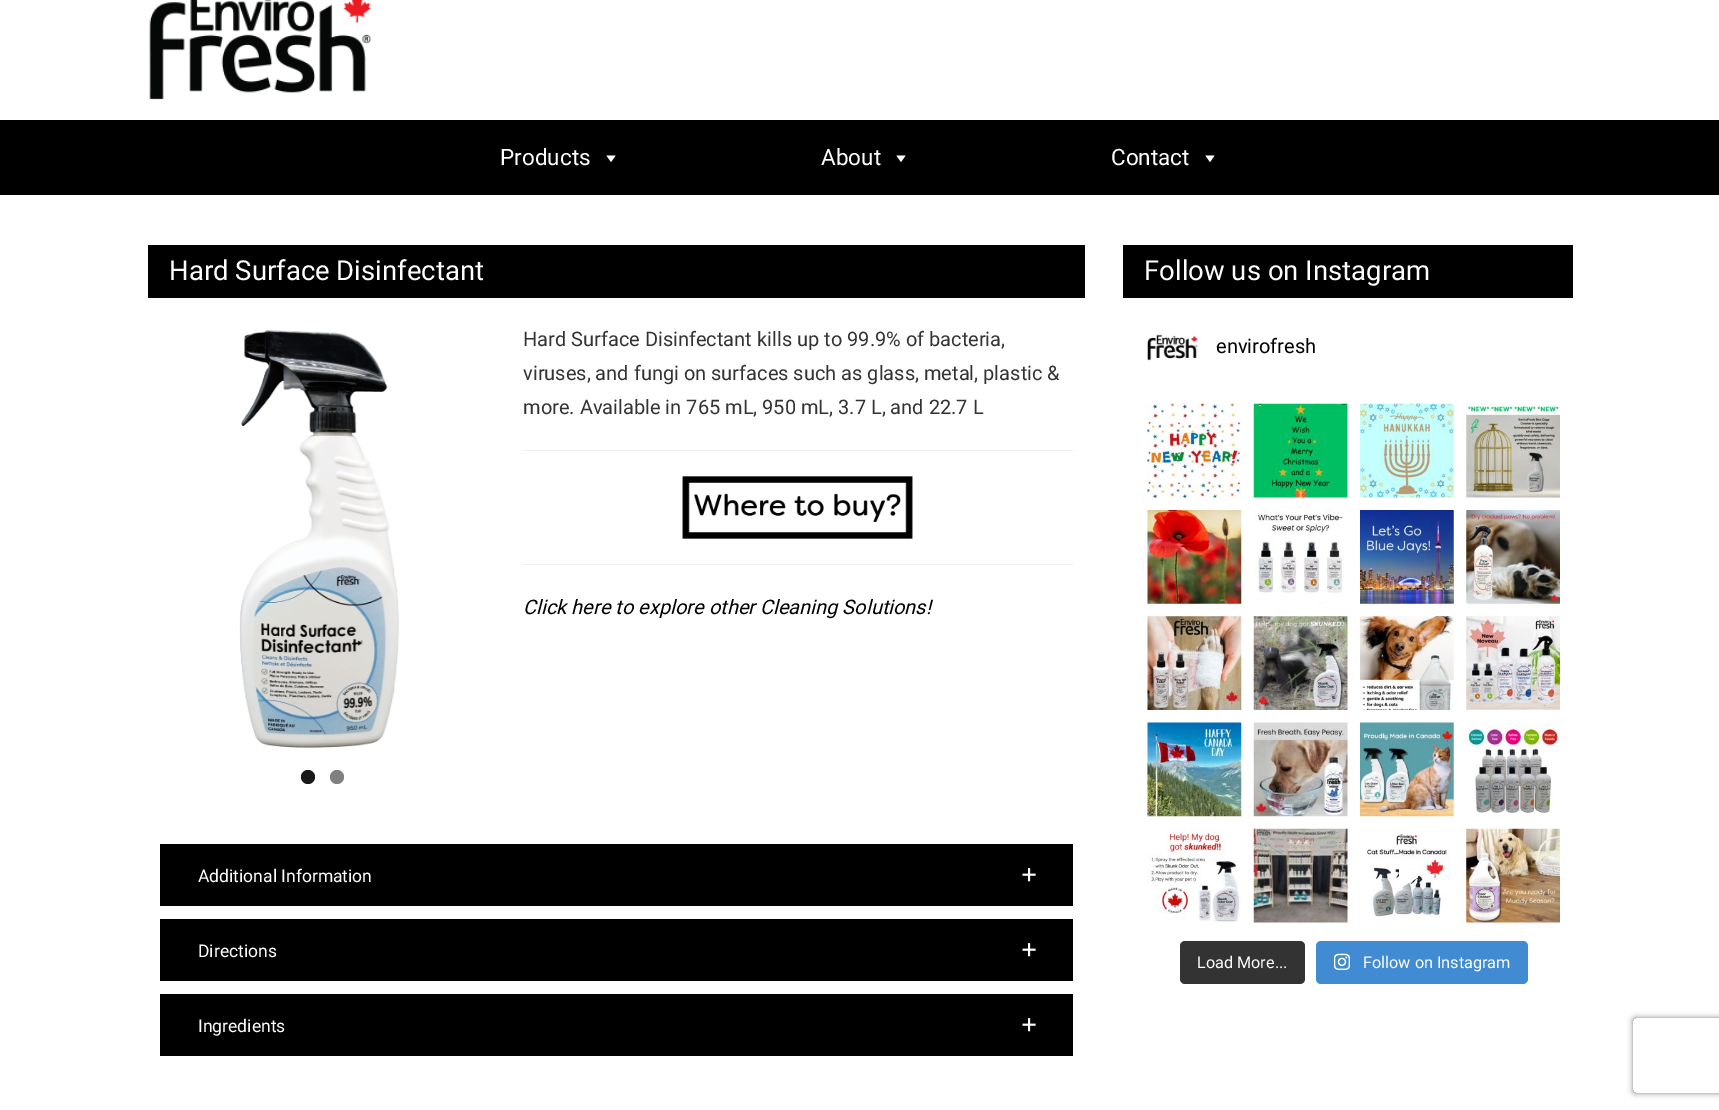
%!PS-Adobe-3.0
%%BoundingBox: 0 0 1719 1110
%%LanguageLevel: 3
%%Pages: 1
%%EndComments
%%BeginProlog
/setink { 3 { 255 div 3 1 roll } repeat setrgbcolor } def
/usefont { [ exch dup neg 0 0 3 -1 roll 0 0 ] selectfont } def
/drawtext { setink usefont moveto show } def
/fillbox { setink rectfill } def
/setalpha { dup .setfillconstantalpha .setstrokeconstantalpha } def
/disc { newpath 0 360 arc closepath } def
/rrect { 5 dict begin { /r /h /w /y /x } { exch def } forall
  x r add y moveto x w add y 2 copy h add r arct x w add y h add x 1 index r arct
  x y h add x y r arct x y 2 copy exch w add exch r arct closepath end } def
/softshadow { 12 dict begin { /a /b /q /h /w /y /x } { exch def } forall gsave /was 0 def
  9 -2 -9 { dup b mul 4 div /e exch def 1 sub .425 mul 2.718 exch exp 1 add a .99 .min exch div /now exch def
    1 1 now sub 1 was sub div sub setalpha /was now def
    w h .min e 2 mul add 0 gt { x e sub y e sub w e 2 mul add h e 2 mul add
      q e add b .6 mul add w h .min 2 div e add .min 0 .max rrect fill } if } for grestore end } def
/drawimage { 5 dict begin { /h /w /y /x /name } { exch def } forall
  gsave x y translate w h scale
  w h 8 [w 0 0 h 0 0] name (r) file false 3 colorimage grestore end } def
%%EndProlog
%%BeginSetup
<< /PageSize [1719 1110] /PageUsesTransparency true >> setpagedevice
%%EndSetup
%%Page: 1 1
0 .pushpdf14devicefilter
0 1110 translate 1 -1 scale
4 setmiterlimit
0 0 1719 1110 255 255 255 fillbox
(assets/img1.rgb) 149 0 223 100 drawimage
0 120 1719 75 0 0 0 fillbox
(Products) 500 165 /Roboto-Regular 22.5 255 255 255 drawtext
615.5 155.5 moveto 611 162 lineto 606.5 155.5 lineto closepath fill
(About) 821 165 /Roboto-Regular 22.5 255 255 255 drawtext
905.5 155.5 moveto 901 162 lineto 896.5 155.5 lineto closepath fill
(Contact) 1111 165 /Roboto-Regular 22.5 255 255 255 drawtext
1214.5 155.5 moveto 1210 162 lineto 1205.5 155.5 lineto closepath fill
148 245 937 53 0 0 0 fillbox
(Hard Surface Disinfectant) 169 280 /Roboto-Regular 27.5 255 255 255 drawtext
(assets/img2.rgb) 239 329 161 419 drawimage
26 26 26 setink
308 777 7 disc fill
128 128 128 setink
337 777 7 disc fill
(Hard Surface Disinfectant kills up to 99.9% of bacteria,) 523 346 /Roboto-Regular 20 51 51 51 drawtext
(viruses, and fungi on surfaces such as glass, metal, plastic &) 523 380 /Roboto-Regular 20 51 51 51 drawtext
(more. Available in 765 mL, 950 mL, 3.7 L, and 22.7 L) 523 414 /Roboto-Regular 20 51 51 51 drawtext
523 450 550 1 238 238 238 fillbox
(assets/img3.rgb) 682 476 231 63 drawimage
523 564 550 1 238 238 238 fillbox
(Click here to explore other Cleaning Solutions!) 523 614 /Roboto-Italic 20 0 0 0 drawtext
160 844 913 62 0 0 0 fillbox
(Additional Information) 198 882 /Roboto-Regular 17.5 255 255 255 drawtext
(assets/img4.rgb) 1022 868 14 14 drawimage
160 919 913 62 0 0 0 fillbox
(Directions) 198 957 /Roboto-Regular 17.5 255 255 255 drawtext
(assets/img4.rgb) 1022 943 14 14 drawimage
160 994 913 62 0 0 0 fillbox
(Ingredients) 198 1032 /Roboto-Regular 17.5 255 255 255 drawtext
(assets/img4.rgb) 1022 1018 14 14 drawimage
1123 245 450 53 0 0 0 fillbox
(Follow us on Instagram) 1144 280 /Roboto-Regular 27.5 255 255 255 drawtext
(assets/img5.rgb) 1147 334 54 27 drawimage
(envirofresh) 1216 353 /Roboto-Regular 20 0 0 0 drawtext
(assets/img6.rgb) 1147 403 95 95 drawimage
(assets/img7.rgb) 1253 403 95 95 drawimage
(assets/img8.rgb) 1360 403 94 95 drawimage
(assets/img9.rgb) 1466 403 94 95 drawimage
(assets/img10.rgb) 1147 510 95 94 drawimage
(assets/img11.rgb) 1254 510 90 94 drawimage
(assets/img12.rgb) 1360 510 94 94 drawimage
(assets/img13.rgb) 1466 510 94 94 drawimage
(assets/img14.rgb) 1147 616 95 94 drawimage
(assets/img15.rgb) 1253 616 95 94 drawimage
(assets/img16.rgb) 1360 616 94 94 drawimage
(assets/img17.rgb) 1466 616 94 94 drawimage
(assets/img18.rgb) 1147 722 95 95 drawimage
(assets/img19.rgb) 1253 722 95 95 drawimage
(assets/img20.rgb) 1360 722 94 95 drawimage
(assets/img21.rgb) 1466 722 94 92 drawimage
(assets/img22.rgb) 1147 828 93 94 drawimage
(assets/img23.rgb) 1253 828 95 95 drawimage
(assets/img24.rgb) 1366 829 84 90 drawimage
(assets/img25.rgb) 1399 868 19 19 drawimage
(assets/img26.rgb) 1466 828 94 95 drawimage
51 51 51 setink
1180 941 125 43 5 rrect fill
(Load More...) 1197 968 /Roboto-Regular 16.25 255 255 255 drawtext
64 139 209 setink
1316 941 212 43 5 rrect fill
(assets/img27.rgb) 1334 953 16 17 drawimage
(Follow on Instagram) 1363 968 /Roboto-Regular 16.25 255 255 255 drawtext
gsave
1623 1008 moveto 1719 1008 lineto 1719 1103 lineto 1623 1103 lineto closepath 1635.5 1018 moveto 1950.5 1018 lineto 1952 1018 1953 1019 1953 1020.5 curveto 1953 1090.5 lineto 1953 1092 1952 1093 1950.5 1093 curveto 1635.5 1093 lineto 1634 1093 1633 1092 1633 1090.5 curveto 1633 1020.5 lineto 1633 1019 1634 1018 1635.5 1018 curveto closepath eoclip newpath
128 128 128 setink
1633 1018 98 75 2.5 3 1 softshadow
grestore
.poppdf14devicefilter showpage
%%EOF
